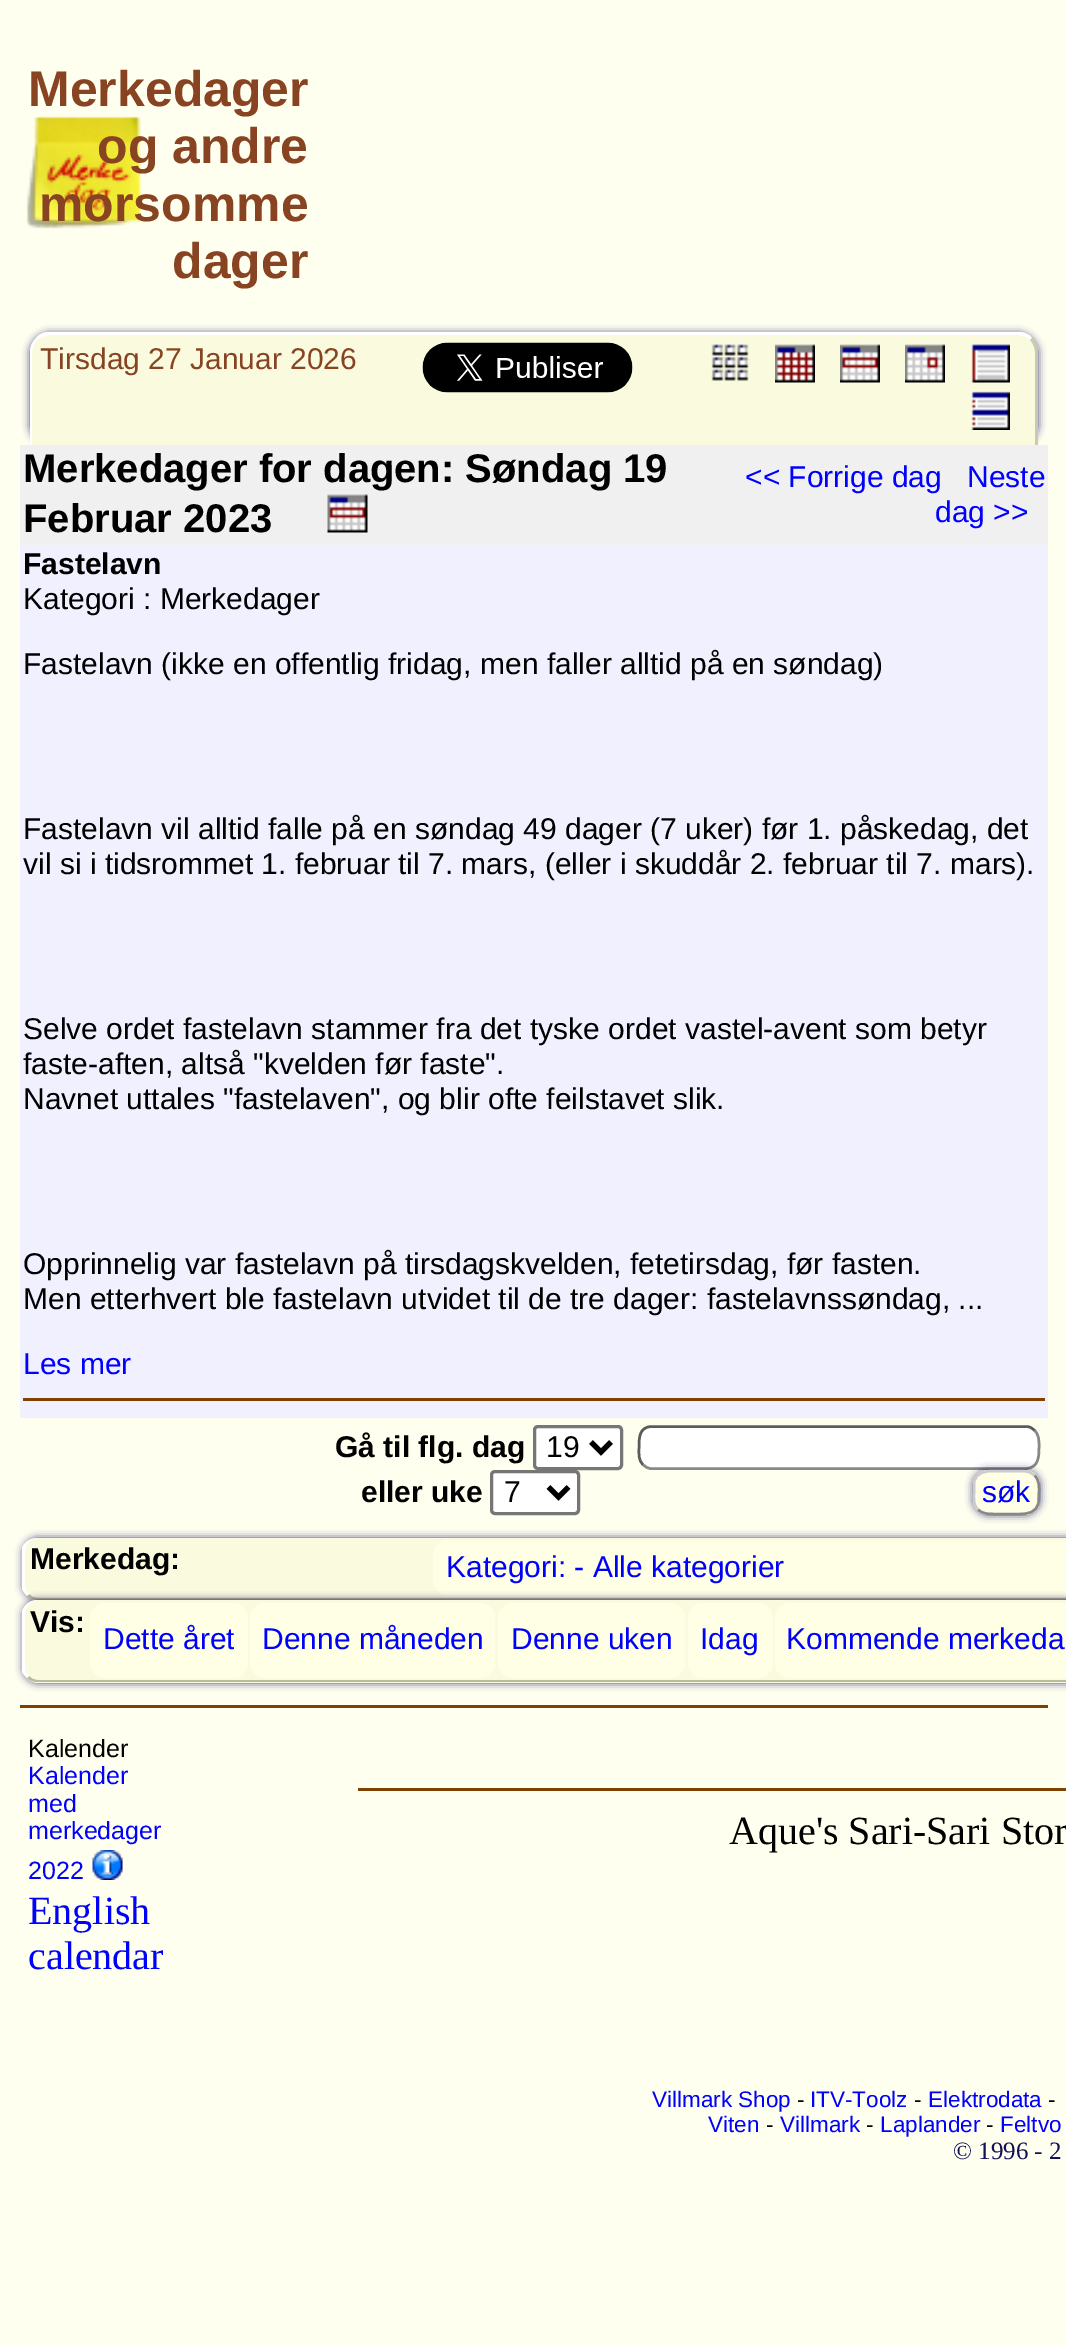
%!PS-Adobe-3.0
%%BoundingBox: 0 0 1066 2345
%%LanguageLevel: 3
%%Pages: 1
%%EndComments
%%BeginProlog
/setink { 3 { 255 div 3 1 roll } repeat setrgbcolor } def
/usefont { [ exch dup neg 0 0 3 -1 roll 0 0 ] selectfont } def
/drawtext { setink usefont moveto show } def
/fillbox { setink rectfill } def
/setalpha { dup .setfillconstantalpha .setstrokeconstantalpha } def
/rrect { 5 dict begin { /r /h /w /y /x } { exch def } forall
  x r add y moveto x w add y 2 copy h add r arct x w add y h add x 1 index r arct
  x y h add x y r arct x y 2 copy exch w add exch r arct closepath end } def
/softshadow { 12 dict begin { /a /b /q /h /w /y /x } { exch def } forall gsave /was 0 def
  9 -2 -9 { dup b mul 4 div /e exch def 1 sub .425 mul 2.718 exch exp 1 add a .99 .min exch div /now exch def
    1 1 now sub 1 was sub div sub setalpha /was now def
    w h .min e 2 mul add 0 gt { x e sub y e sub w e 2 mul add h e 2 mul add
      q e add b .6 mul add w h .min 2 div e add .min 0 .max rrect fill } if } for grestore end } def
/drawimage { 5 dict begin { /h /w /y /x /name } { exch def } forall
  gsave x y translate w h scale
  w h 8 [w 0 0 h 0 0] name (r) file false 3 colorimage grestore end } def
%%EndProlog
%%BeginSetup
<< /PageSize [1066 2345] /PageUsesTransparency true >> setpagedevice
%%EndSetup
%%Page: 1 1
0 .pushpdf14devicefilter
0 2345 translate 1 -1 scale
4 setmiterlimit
0 0 1066 2345 255 255 240 fillbox
(assets/img1.rgb) 26 116 115 113 drawimage
(Merkedager) 28 106 /LiberationSans-Bold 50 136 68 34 drawtext
(og andre) 97 163 /LiberationSans-Bold 50 136 68 34 drawtext
(morsomme) 39 221 /LiberationSans-Bold 50 136 68 34 drawtext
(dager) 172 278 /LiberationSans-Bold 50 136 68 34 drawtext
2 2 92 setink
30 333 1008 112 20 4 0.75 softshadow
250 250 222 setink
50 333 moveto 1018 333 lineto 1029 333 1038 342 1038 353 curveto 1038 445 lineto 30 445 lineto 30 353 lineto 30 342 39 333 50 333 curveto closepath fill
255 255 255 setink
50 335 moveto 45 335 41 337 37 340 curveto 36 338 lineto 38 335 42 333 46 332 curveto 1022 332 lineto 1026 333 1030 335 1032 338 curveto 1030 340 lineto 1027 337 1022 335 1018 335 curveto closepath fill
202 202 174 setink
1030 340 moveto 1032 338 lineto 1035 340 1037 344 1038 348 curveto 1038 445 lineto 1035 445 lineto 1035 352 lineto 1035 348 1033 343 1030 340 curveto closepath fill
255 255 255 setink
30 445 moveto 32 445 lineto 32 352 lineto 32 347 34 343 37 340 curveto 36 338 lineto 32 342 30 347 30 352 curveto closepath fill
(Tirsdag 27 Januar 2026) 40 369 /LiberationSans-Regular 30 136 68 34 drawtext
(assets/img2.rgb) 422 342 211 51 drawimage
(assets/img3.rgb) 711 344 38 37 drawimage
(assets/img4.rgb) 775 344 40 39 drawimage
(assets/img5.rgb) 840 344 40 39 drawimage
(assets/img6.rgb) 905 344 40 39 drawimage
(assets/img7.rgb) 971 344 39 39 drawimage
(assets/img8.rgb) 971 391 39 39 drawimage
20 445 1028 100 240 240 240 fillbox
(Merkedager for dagen: Søndag 19) 23 482 /LiberationSans-Bold 40 0 0 0 drawtext
(Februar 2023) 23 532 /LiberationSans-Bold 40 0 0 0 drawtext
(assets/img9.rgb) 327 494 41 39 drawimage
(<< Forrige dag) 745 487 /LiberationSans-Regular 30 0 0 255 drawtext
(Neste) 967 487 /LiberationSans-Regular 30 0 0 255 drawtext
(dag >>) 935 522 /LiberationSans-Regular 30 0 0 255 drawtext
20 545 1028 873 240 240 255 fillbox
(Fastelavn) 23 574 /LiberationSans-Bold 30 0 0 0 drawtext
(Kategori : Merkedager) 23 609 /LiberationSans-Regular 30 0 0 0 drawtext
(Fastelavn \(ikke en offentlig fridag, men faller alltid på en søndag\)) 23 674 /LiberationSans-Regular 30 0 0 0 drawtext
(Fastelavn vil alltid falle på en søndag 49 dager \(7 uker\) før 1. påskedag, det) 23 839 /LiberationSans-Regular 30 0 0 0 drawtext
(vil si i tidsrommet 1. februar til 7. mars, \(eller i skuddår 2. februar til 7. mars\).) 23 874 /LiberationSans-Regular 30 0 0 0 drawtext
(Selve ordet fastelavn stammer fra det tyske ordet vastel-avent som betyr) 23 1039 /LiberationSans-Regular 30 0 0 0 drawtext
(faste-aften, altså "kvelden før faste".) 23 1074 /LiberationSans-Regular 30 0 0 0 drawtext
(Navnet uttales "fastelaven", og blir ofte feilstavet slik.) 23 1109 /LiberationSans-Regular 30 0 0 0 drawtext
(Opprinnelig var fastelavn på tirsdagskvelden, fetetirsdag, før fasten.) 23 1274 /LiberationSans-Regular 30 0 0 0 drawtext
(Men etterhvert ble fastelavn utvidet til de tre dager: fastelavnssøndag, ...) 23 1309 /LiberationSans-Regular 30 0 0 0 drawtext
(Les mer) 23 1374 /LiberationSans-Regular 30 0 0 255 drawtext
23 1398 1022 3 128 64 0 fillbox
(Gå til flg. dag) 335 1457 /LiberationSans-Bold 30 0 0 0 drawtext
255 255 255 setink
534.5 1426.5 87 42 3.5 rrect gsave fill grestore
118 118 118 setink
3 setlinewidth
stroke
0 0 0 setink
5 setlinewidth
591 1442 moveto 601 1452 lineto 611 1442 lineto stroke
(19) 546 1457 /LiberationSans-Regular 30 0 0 0 drawtext
(eller uke) 361 1502 /LiberationSans-Bold 30 0 0 0 drawtext
255 255 255 setink
491.5 1471.5 87 42 3.5 rrect gsave fill grestore
118 118 118 setink
3 setlinewidth
stroke
0 0 0 setink
5 setlinewidth
548.5 1487 moveto 558.5 1497 lineto 568.5 1487 lineto stroke
(7) 504 1502 /LiberationSans-Regular 30 0 0 0 drawtext
255 255 255 setink
638 1425 402 45 15 rrect fill
136 136 136 setink
2.5 setlinewidth
1034.5 1430.5 moveto 1039.5 1435 1039 1441.5 1039 1447.5 curveto 1039 1457 1038.5 1467.5 1026.5 1468.5 curveto 651 1468.5 lineto 648 1468.5 645 1467 643 1464.5 curveto stroke
91 91 91 setink
643 1464.5 moveto 638 1460 639 1453.5 639 1447.5 curveto 639 1438 639 1427.5 651 1426.5 curveto 1026.5 1426.5 lineto 1029.5 1426.5 1032.5 1428 1034.5 1430.5 curveto stroke
2 2 92 setink
973 1470 67 45 15 4 0.75 softshadow
255 255 229 setink
973 1470 67 45 15 rrect fill
136 136 136 setink
1034.5 1475.5 moveto 1039.5 1480 1039 1486.5 1039 1492.5 curveto 1038.5 1502.5 lineto 1036.5 1513 1027.5 1514 1019 1514 curveto 994 1514 lineto 988 1514 982.5 1514 978 1509.5 curveto stroke
204 204 204 setink
978 1509.5 moveto 973 1505 974 1498.5 974 1492.5 curveto 974 1482.5 lineto 976 1472 985 1471 994 1471 curveto 1019 1471 lineto 1024.5 1471 1030 1471 1034.5 1475.5 curveto stroke
(søk) 982 1502 /LiberationSans-Regular 30 0 0 255 drawtext
2 2 92 setink
23 1538 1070 62 15 4 0.75 softshadow
250 250 222 setink
23 1538 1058 62 15 rrect fill
186 186 158 setink
29 1594 moveto 31 1596 34 1598 38 1598 curveto 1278 1598 lineto 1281 1598 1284 1596 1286 1594 curveto 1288 1596 lineto 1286 1598 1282 1600 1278 1600 curveto 38 1600 lineto 34 1600 30 1598 27 1596 curveto closepath fill
255 255 255 setink
38 1538 moveto 31 1538 25 1544 25 1552 curveto 25 1585 lineto 25 1588 26 1592 29 1594 curveto 27 1596 lineto 25 1594 23 1591 22 1589 curveto 22 1548 lineto 24 1542 30 1538 38 1538 curveto closepath fill
(Merkedag:) 30 1569 /LiberationSans-Bold 30 0 0 0 drawtext
255 255 229 setink
433 1540 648 55 15 rrect fill
(Kategori: - Alle kategorier) 446 1577 /LiberationSans-Regular 30 0 0 255 drawtext
2 2 92 setink
23 1600 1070 83 15 4 0.75 softshadow
250 250 222 setink
23 1600 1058 83 15 rrect fill
186 186 158 setink
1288 1678 moveto 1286 1680 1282 1682 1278 1682 curveto 38 1682 lineto 34 1682 30 1681 27 1678 curveto 29 1676 lineto 31 1678 34 1680 38 1680 curveto 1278 1680 lineto 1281 1680 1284 1678 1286 1676 curveto closepath fill
255 255 255 setink
38 1600 moveto 31 1600 25 1607 25 1615 curveto 25 1668 lineto 25 1671 26 1674 29 1676 curveto 27 1678 lineto 25 1676 23 1674 22 1672 curveto 22 1611 lineto 24 1605 30 1600 38 1600 curveto closepath fill
(Vis:) 30 1632 /LiberationSans-Bold 30 0 0 0 drawtext
255 255 229 setink
90 1603 158 75 15 rrect fill
(Dette året) 103 1649 /LiberationSans-Regular 30 0 0 255 drawtext
255 255 229 setink
250 1603 245 75 15 rrect fill
(Denne måneden) 262 1649 /LiberationSans-Regular 30 0 0 255 drawtext
255 255 229 setink
498 1603 187 75 15 rrect fill
(Denne uken) 511 1649 /LiberationSans-Regular 30 0 0 255 drawtext
255 255 229 setink
688 1603 85 75 15 rrect fill
(Idag) 700 1649 /LiberationSans-Regular 30 0 0 255 drawtext
255 255 229 setink
775 1603 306 75 15 rrect fill
(Kommende merkeda) 786 1649 /LiberationSans-Regular 30 0 0 255 drawtext
20 1705 1028 3 128 64 0 fillbox
(Kalender) 28 1757 /LiberationSans-Regular 25 0 0 0 drawtext
(Kalender) 28 1784 /LiberationSans-Regular 25 0 0 255 drawtext
(med) 28 1812 /LiberationSans-Regular 25 0 0 255 drawtext
(merkedager) 28 1839 /LiberationSans-Regular 25 0 0 255 drawtext
(2022) 28 1879 /LiberationSans-Regular 25 0 0 255 drawtext
(assets/img10.rgb) 92 1850 31 30 drawimage
(English) 28 1924 /LiberationSerif-Regular 40 0 0 255 drawtext
(calendar) 28 1969 /LiberationSerif-Regular 40 0 0 255 drawtext
358 1788 708 3 128 64 0 fillbox
(Aque's Sari-Sari Stor) 729 1844 /LiberationSerif-Regular 40 0 0 0 drawtext
(Villmark Shop) 652 2107 /LiberationSans-Regular 22.5 0 0 255 drawtext
(-) 797 2107 /LiberationSans-Regular 22.5 0 0 0 drawtext
(ITV-Toolz) 810 2107 /LiberationSans-Regular 22.5 0 0 255 drawtext
(-) 914 2107 /LiberationSans-Regular 22.5 0 0 0 drawtext
(Elektrodata) 928 2107 /LiberationSans-Regular 22.5 0 0 255 drawtext
(-) 1048 2107 /LiberationSans-Regular 22.5 0 0 0 drawtext
(Viten) 708 2132 /LiberationSans-Regular 22.5 0 0 255 drawtext
(-) 766 2132 /LiberationSans-Regular 22.5 0 0 0 drawtext
(Villmark) 780 2132 /LiberationSans-Regular 22.5 0 0 255 drawtext
(-) 866 2132 /LiberationSans-Regular 22.5 0 0 0 drawtext
(Laplander) 880 2132 /LiberationSans-Regular 22.5 0 0 255 drawtext
(-) 986 2132 /LiberationSans-Regular 22.5 0 0 0 drawtext
(Feltvo) 1000 2132 /LiberationSans-Regular 22.5 0 0 255 drawtext
(© 1996 - 2) 953 2159 /LiberationSerif-Regular 25 17 17 85 drawtext
.poppdf14devicefilter showpage
%%EOF
